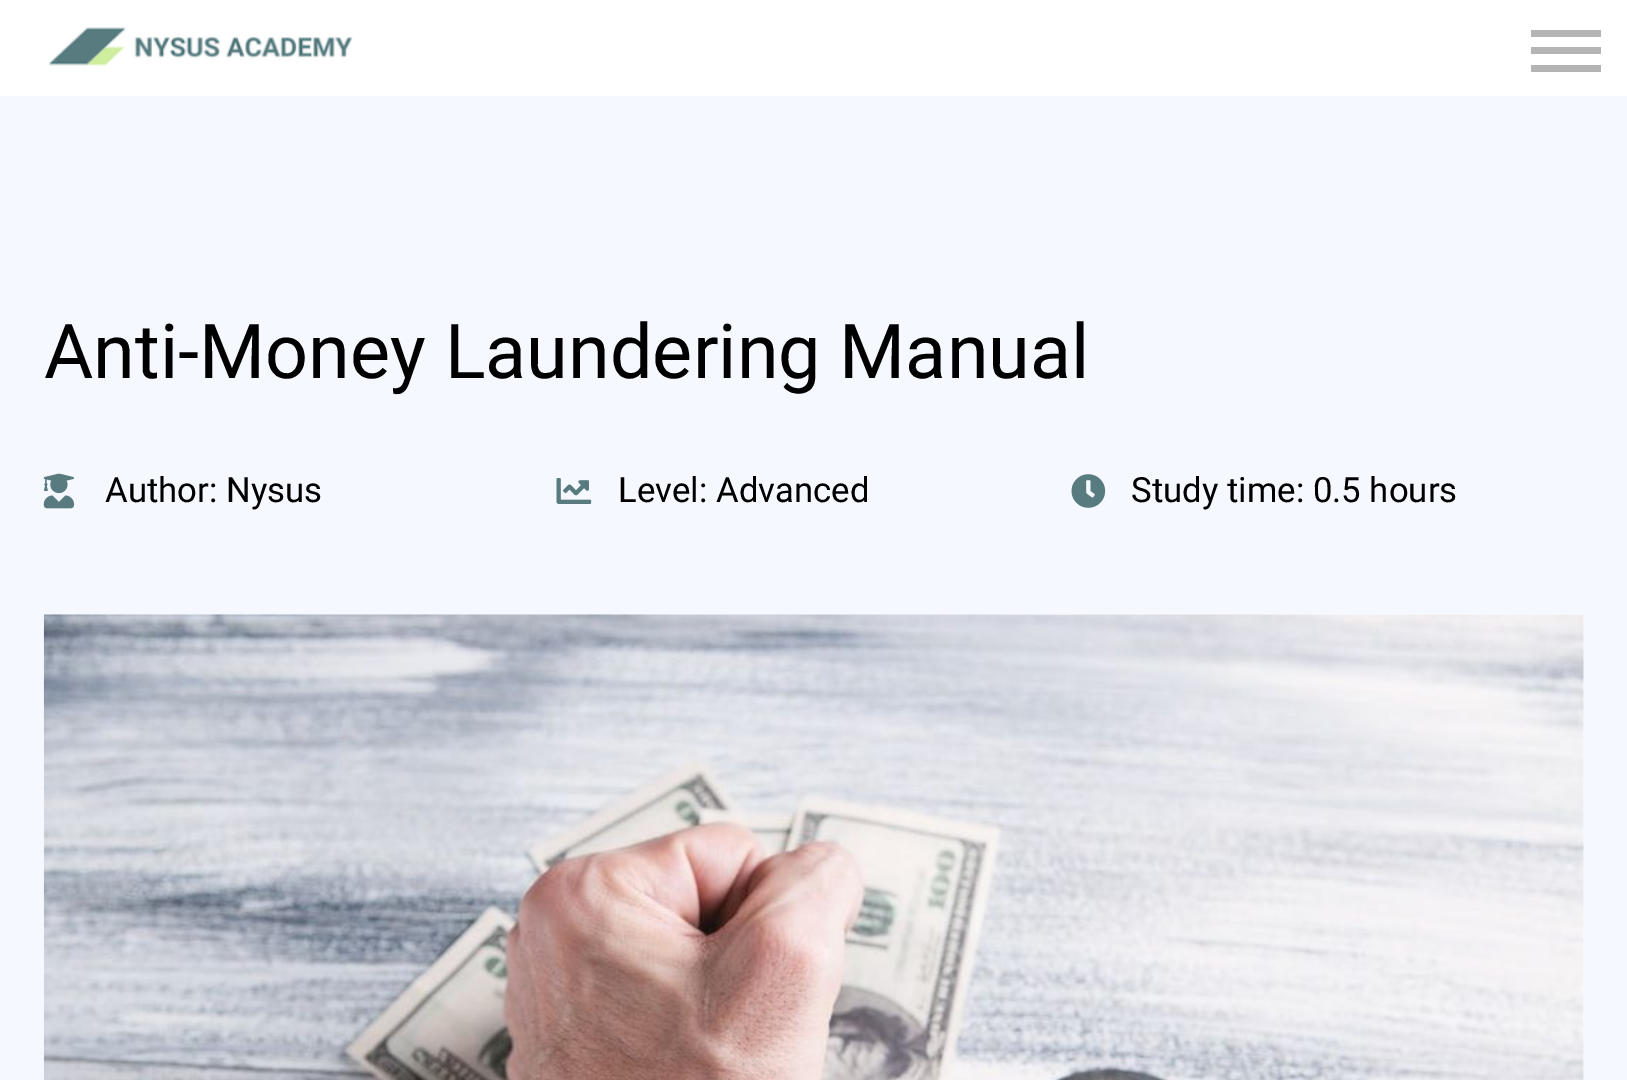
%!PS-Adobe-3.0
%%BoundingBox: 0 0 1627 1080
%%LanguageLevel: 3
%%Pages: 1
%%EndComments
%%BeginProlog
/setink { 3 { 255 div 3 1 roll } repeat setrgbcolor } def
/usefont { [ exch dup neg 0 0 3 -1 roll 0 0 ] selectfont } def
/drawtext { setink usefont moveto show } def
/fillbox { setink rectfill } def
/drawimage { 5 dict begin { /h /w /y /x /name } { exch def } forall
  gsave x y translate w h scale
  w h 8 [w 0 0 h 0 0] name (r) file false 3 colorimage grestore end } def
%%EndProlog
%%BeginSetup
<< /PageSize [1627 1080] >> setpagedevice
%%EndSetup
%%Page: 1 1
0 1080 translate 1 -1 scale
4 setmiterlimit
0 0 1627 1080 255 255 255 fillbox
(assets/img1.rgb) 48 27 305 39 drawimage
1531 65 70 7 180 180 180 fillbox
1531 30 70 7 180 180 180 fillbox
1531 47 70 7 180 180 180 fillbox
0 96 1627 984 246 248 255 fillbox
(Anti-Money Laundering Manual) 44 378 /Roboto-Regular 75.6 0 0 0 drawtext
(assets/img2.rgb) 43 473 32 36 drawimage
(Author: Nysus) 105 502 /Roboto-Regular 34.75 0 0 0 drawtext
(assets/img3.rgb) 556 478 36 26 drawimage
(Level: Advanced) 618 502 /Roboto-Regular 34.75 0 0 0 drawtext
(assets/img4.rgb) 1071 474 35 34 drawimage
(Study time: 0.5 hours) 1131 502 /Roboto-Regular 34.75 0 0 0 drawtext
44 614 1540 466 255 255 255 fillbox
(assets/img5.rgb) 43 614 1541 466 drawimage
showpage
%%EOF
